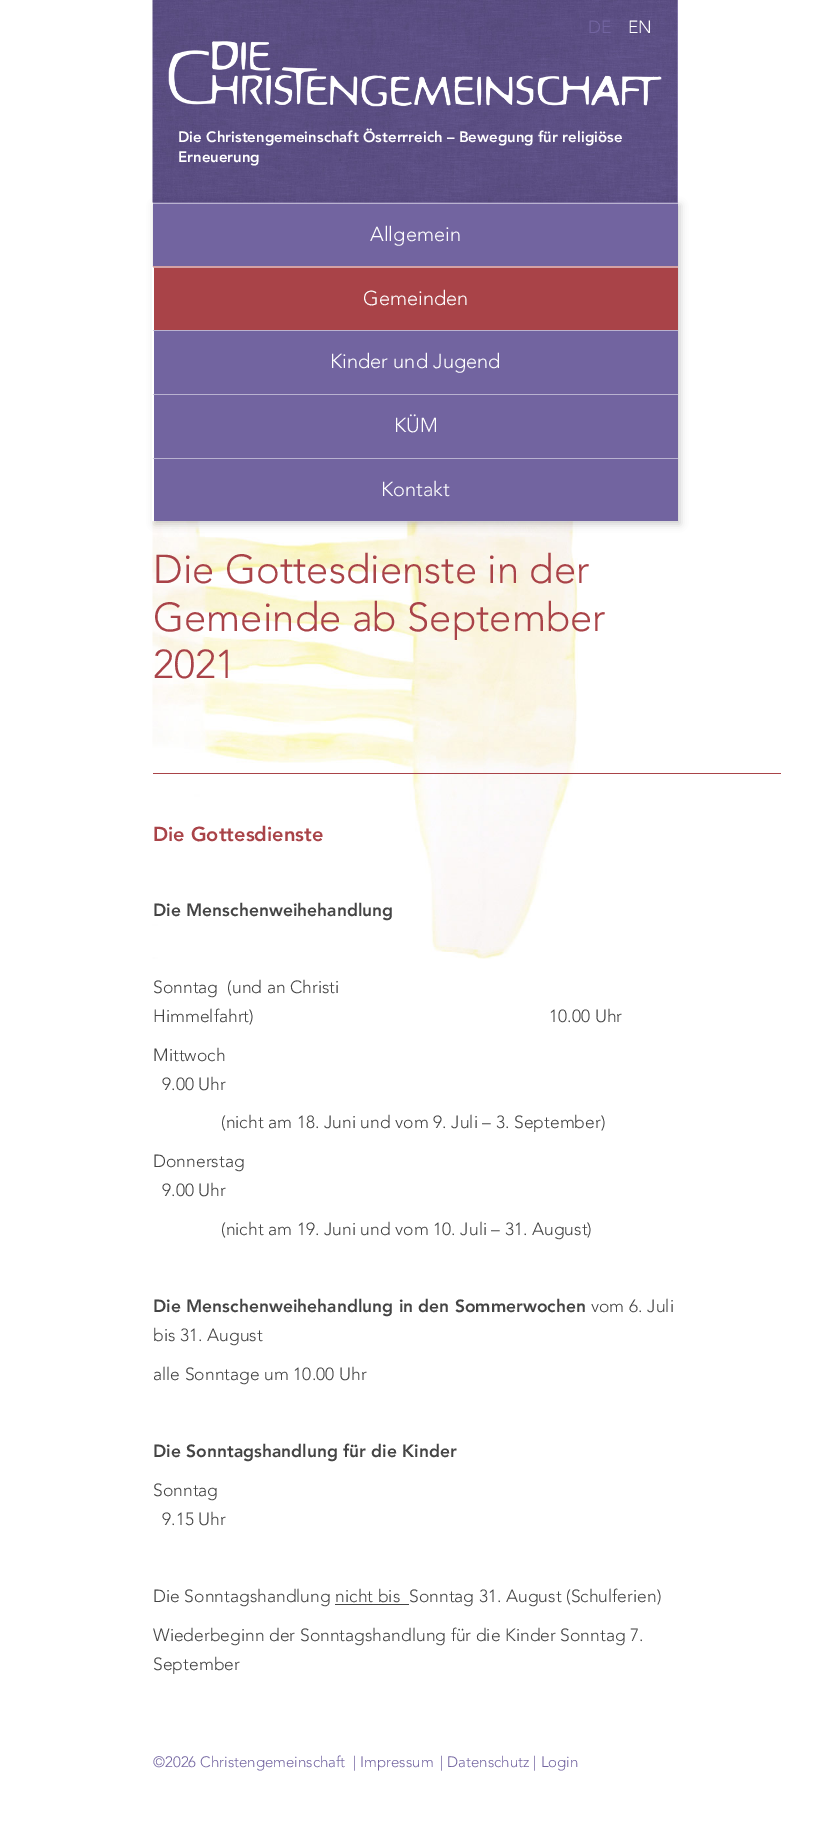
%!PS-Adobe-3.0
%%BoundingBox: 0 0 830 1825
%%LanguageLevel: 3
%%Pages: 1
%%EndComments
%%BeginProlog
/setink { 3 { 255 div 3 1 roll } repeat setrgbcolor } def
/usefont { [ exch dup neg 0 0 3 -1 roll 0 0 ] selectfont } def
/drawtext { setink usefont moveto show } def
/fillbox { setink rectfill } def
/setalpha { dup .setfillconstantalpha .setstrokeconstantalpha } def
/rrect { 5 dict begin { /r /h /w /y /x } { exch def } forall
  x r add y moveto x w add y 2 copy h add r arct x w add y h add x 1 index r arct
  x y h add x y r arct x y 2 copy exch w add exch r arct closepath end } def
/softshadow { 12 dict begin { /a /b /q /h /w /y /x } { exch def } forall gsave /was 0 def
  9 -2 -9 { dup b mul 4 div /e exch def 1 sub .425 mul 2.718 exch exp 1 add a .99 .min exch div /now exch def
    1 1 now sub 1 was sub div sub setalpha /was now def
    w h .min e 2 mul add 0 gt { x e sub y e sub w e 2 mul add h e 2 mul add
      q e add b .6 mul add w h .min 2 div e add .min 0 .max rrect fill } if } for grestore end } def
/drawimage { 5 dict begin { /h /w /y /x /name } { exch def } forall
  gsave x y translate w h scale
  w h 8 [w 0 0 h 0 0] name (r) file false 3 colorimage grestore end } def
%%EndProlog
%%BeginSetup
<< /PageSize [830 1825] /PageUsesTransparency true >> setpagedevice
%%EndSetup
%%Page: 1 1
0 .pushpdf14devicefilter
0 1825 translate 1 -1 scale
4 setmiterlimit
0 0 830 1825 255 255 255 fillbox
153 0 525 203 167 153 201 fillbox
(assets/img1.rgb) 152 0 526 203 drawimage
(DE) 588 33 /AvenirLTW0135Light-Light 17.5 114 100 160 drawtext
(EN) 628 33 /AvenirLTW0135Light-Light 17.5 255 255 255 drawtext
(assets/img2.rgb) 168 41 494 66 drawimage
(Die Christengemeinschaft Österrreich – Bewegung für religiöse) 178 142 /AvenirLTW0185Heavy-Black 15 255 255 255 drawtext
(Erneuerung) 178 162 /AvenirLTW0185Heavy-Black 15 255 255 255 drawtext
(assets/img3.rgb) 152 521 426 438 drawimage
0 0 0 setink
155 205 525 319 0 4 0.2 softshadow
153 204 525 62 114 100 160 fillbox
153 203 525 1 185 178 208 fillbox
(Allgemein) 370 241 /AvenirLTW0135Light-Light 20 255 255 255 drawtext
153 267 525 63 169 67 72 fillbox
212 161 164 setink
152 266 moveto 678 266 lineto 678 268 lineto 154 268 lineto closepath fill
255 255 255 setink
152 330 moveto 152 266 lineto 154 268 lineto 154 330 lineto closepath fill
(Gemeinden) 363 305 /AvenirLTW0135Light-Light 20 255 255 255 drawtext
153 330 525 191 114 100 160 fillbox
185 178 208 setink
152 330 moveto 678 330 lineto 678 331 lineto 154 331 lineto closepath fill
255 255 255 setink
152 394 moveto 152 330 lineto 154 331 lineto 154 394 lineto closepath fill
(Kinder und Jugend) 330 368 /AvenirLTW0135Light-Light 20 255 255 255 drawtext
185 178 208 setink
152 394 moveto 678 394 lineto 678 395 lineto 154 395 lineto closepath fill
255 255 255 setink
152 458 moveto 152 394 lineto 154 395 lineto 154 458 lineto closepath fill
(KÜM) 394 432 /AvenirLTW0135Light-Light 20 255 255 255 drawtext
185 178 208 setink
152 458 moveto 678 458 lineto 678 459 lineto 154 459 lineto closepath fill
255 255 255 setink
152 521 moveto 152 458 lineto 154 459 lineto 154 521 lineto closepath fill
(Kontakt) 381 496 /AvenirLTW0135Light-Light 20 255 255 255 drawtext
(Die Gottesdienste in der) 153 583 /AvenirLTW0135Light-Light 40 169 67 72 drawtext
(Gemeinde ab September) 153 631 /AvenirLTW0135Light-Light 40 169 67 72 drawtext
(2021) 153 678 /AvenirLTW0135Light-Light 40 169 67 72 drawtext
153 773 628 1 169 67 72 fillbox
(Die Gottesdienste) 153 841 /AvenirLTW0185Heavy-Black 20 169 67 72 drawtext
(Die Menschenweihehandlung) 153 916 /AvenirLTW0185Heavy-Black 17.5 68 68 68 drawtext
(Sonntag  \(und an Christi) 153 993 /AvenirLTW0135Light-Light 17.5 68 68 68 drawtext
(Himmelfahrt\)                                                                 10.00 Uhr) 153 1022 /AvenirLTW0135Light-Light 17.5 68 68 68 drawtext
(Mittwoch) 153 1061 /AvenirLTW0135Light-Light 17.5 68 68 68 drawtext
(9.00 Uhr) 162 1090 /AvenirLTW0135Light-Light 17.5 68 68 68 drawtext
(\(nicht am 18. Juni und vom 9. Juli – 3. September\)) 221 1128 /AvenirLTW0135Light-Light 17.5 68 68 68 drawtext
(Donnerstag) 153 1167 /AvenirLTW0135Light-Light 17.5 68 68 68 drawtext
(9.00 Uhr) 162 1196 /AvenirLTW0135Light-Light 17.5 68 68 68 drawtext
(\(nicht am 19. Juni und vom 10. Juli – 31. August\)) 221 1235 /AvenirLTW0135Light-Light 17.5 68 68 68 drawtext
(Die Menschenweihehandlung in den Sommerwochen) 153 1312 /AvenirLTW0185Heavy-Black 17.5 68 68 68 drawtext
(vom 6. Juli) 591 1312 /AvenirLTW0135Light-Light 17.5 68 68 68 drawtext
(bis 31. August) 153 1341 /AvenirLTW0135Light-Light 17.5 68 68 68 drawtext
(alle Sonntage um 10.00 Uhr) 153 1380 /AvenirLTW0135Light-Light 17.5 68 68 68 drawtext
(Die Sonntagshandlung für die Kinder) 153 1457 /AvenirLTW0185Heavy-Black 17.5 68 68 68 drawtext
(Sonntag) 153 1496 /AvenirLTW0135Light-Light 17.5 68 68 68 drawtext
(9.15 Uhr) 162 1525 /AvenirLTW0135Light-Light 17.5 68 68 68 drawtext
(Die Sonntagshandlung nicht bis) 153 1602 /AvenirLTW0135Light-Light 17.5 68 68 68 drawtext
(Sonntag 31. August \(Schulferien\)) 409 1602 /AvenirLTW0135Light-Light 17.5 68 68 68 drawtext
335 1604 74 1 68 68 68 fillbox
(Wiederbeginn der Sonntagshandlung für die Kinder Sonntag 7.) 153 1641 /AvenirLTW0135Light-Light 17.5 68 68 68 drawtext
(September) 153 1670 /AvenirLTW0135Light-Light 17.5 68 68 68 drawtext
(©2026 Christengemeinschaft) 153 1767 /AvenirLTW0135Light-Light 15 114 100 160 drawtext
(| Impressum) 353 1767 /AvenirLTW0135Light-Light 15 114 100 160 drawtext
(| Datenschutz | Login) 440 1767 /AvenirLTW0135Light-Light 15 114 100 160 drawtext
.poppdf14devicefilter showpage
%%EOF
